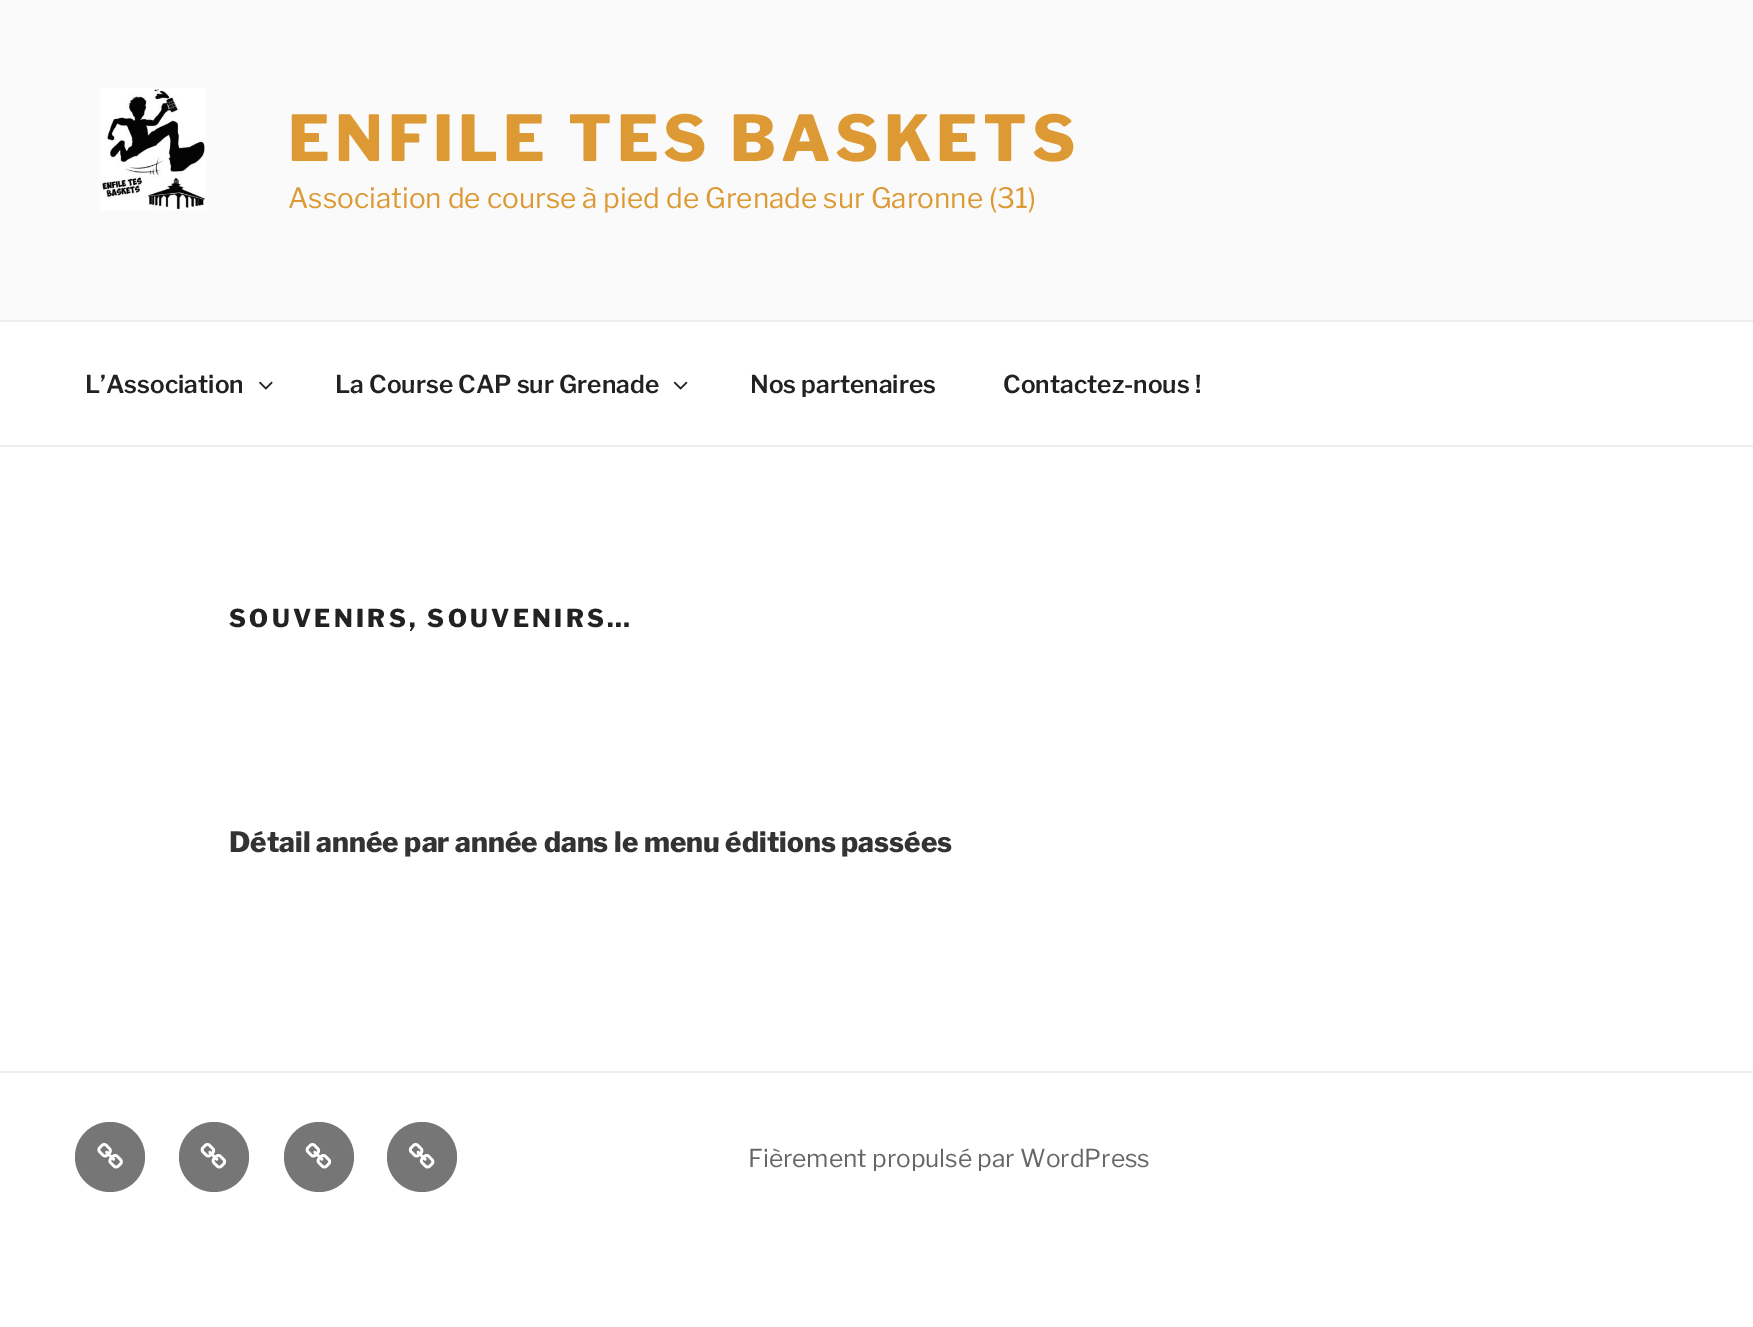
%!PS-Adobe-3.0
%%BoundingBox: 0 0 1753 1327
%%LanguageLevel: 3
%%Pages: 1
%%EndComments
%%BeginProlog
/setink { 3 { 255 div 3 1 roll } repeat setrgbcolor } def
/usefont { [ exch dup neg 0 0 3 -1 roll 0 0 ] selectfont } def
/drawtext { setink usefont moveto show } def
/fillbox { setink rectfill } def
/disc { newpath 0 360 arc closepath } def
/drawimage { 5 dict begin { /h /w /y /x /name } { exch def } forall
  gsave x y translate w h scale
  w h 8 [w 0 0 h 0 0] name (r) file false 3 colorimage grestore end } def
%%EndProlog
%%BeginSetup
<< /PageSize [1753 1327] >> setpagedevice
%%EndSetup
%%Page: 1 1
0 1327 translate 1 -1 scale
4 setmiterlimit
0 0 1753 1327 255 255 255 fillbox
0 0 1753 320 250 250 250 fillbox
(assets/img1.rgb) 99 88 107 123 drawimage
/LibreFranklin-ExtraBold 63 usefont
221 153 51 setink
288 161 moveto 5 0 (ENFILE TES BASKETS) ashow
(Association de course à pied de Grenade sur Garonne \(31\)) 288 208 /LibreFranklin-Regular 28 221 153 51 drawtext
0 320 1753 2 238 238 238 fillbox
0 445 1753 2 238 238 238 fillbox
(L’Association) 85 393 /LibreFranklin-SemiBold 24.5 34 34 34 drawtext
(assets/img2.rgb) 259 381 14 9 drawimage
(La Course CAP sur Grenade) 335 393 /LibreFranklin-SemiBold 24.5 34 34 34 drawtext
(assets/img3.rgb) 673 381 15 9 drawimage
(Nos partenaires) 750 393 /LibreFranklin-SemiBold 24.5 34 34 34 drawtext
(Contactez-nous !) 1003 393 /LibreFranklin-SemiBold 24.5 34 34 34 drawtext
/LibreFranklin-ExtraBold 24.5 usefont
229 627 moveto 3.4 0 (SOUVENIRS, SOUVENIRS…) ashow
(Détail année par année dans le menu éditions passées) 229 852 /LibreFranklin-ExtraBold 28 51 51 51 drawtext
0 1071 1753 2 238 238 238 fillbox
118 118 118 setink
110 1157 35 disc fill
(assets/img4.rgb) 97 1143 26 26 drawimage
214 1157 35 disc fill
(assets/img5.rgb) 200 1143 27 26 drawimage
319 1157 35 disc fill
(assets/img5.rgb) 305 1143 27 26 drawimage
422 1157 35 disc fill
(assets/img6.rgb) 408 1143 27 26 drawimage
(Fièrement propulsé par WordPress) 748 1167 /LibreFranklin-Regular 24.5 102 102 102 drawtext
showpage
%%EOF
